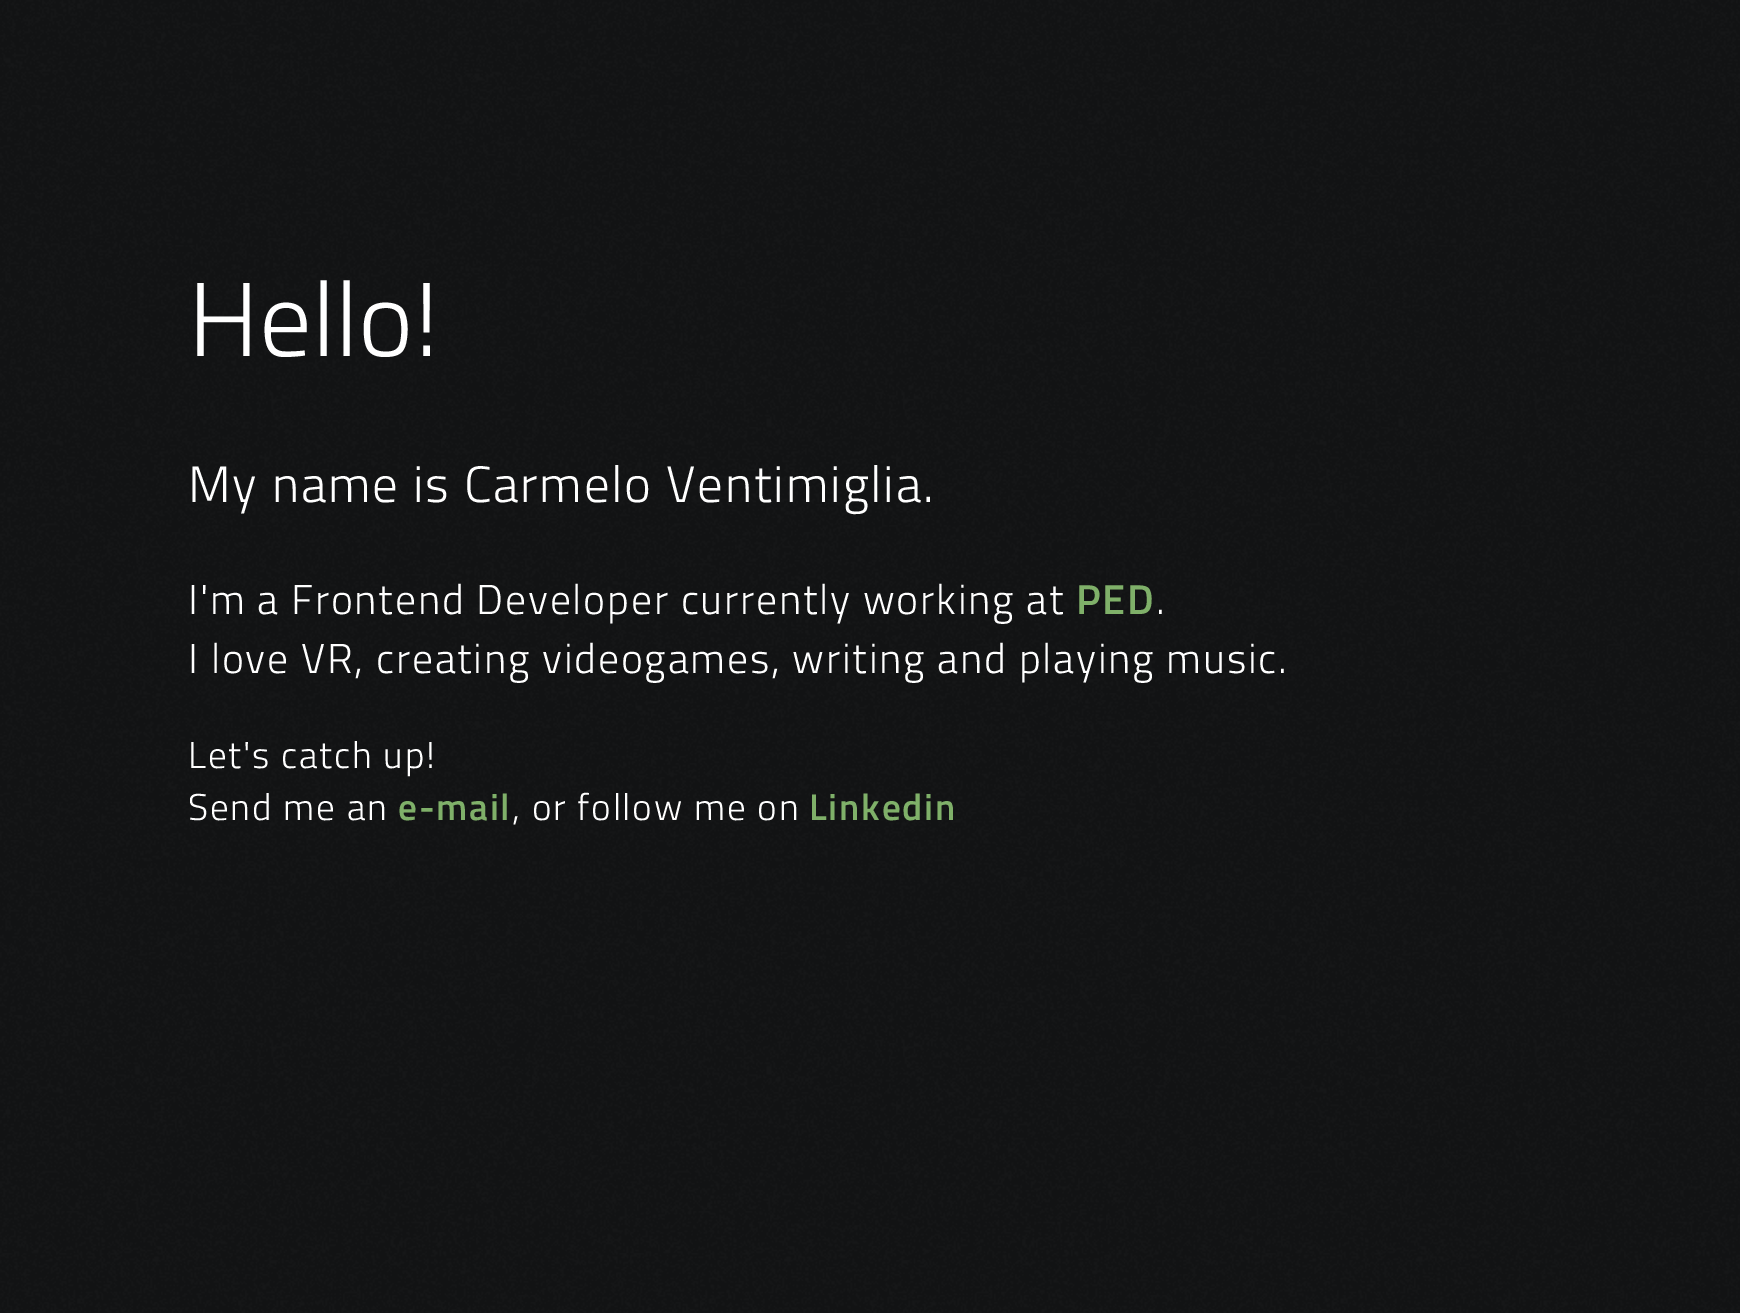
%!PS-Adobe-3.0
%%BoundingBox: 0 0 1740 1313
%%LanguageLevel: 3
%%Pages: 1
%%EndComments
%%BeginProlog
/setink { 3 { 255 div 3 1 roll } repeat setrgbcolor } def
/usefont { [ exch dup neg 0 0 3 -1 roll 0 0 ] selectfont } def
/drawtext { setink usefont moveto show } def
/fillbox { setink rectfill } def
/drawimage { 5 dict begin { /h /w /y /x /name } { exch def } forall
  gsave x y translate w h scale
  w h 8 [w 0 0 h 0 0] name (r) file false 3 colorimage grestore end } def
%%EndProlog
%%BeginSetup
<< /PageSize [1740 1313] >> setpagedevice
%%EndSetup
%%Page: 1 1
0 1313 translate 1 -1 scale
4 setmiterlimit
0 0 1740 1313 255 255 255 fillbox
(assets/img1.rgb) 0 0 1740 1313 drawimage
(Hello!) 188 356 /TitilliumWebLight-Light 105 255 255 255 drawtext
/TitilliumWebLight-Light 51.1 usefont
188 502 moveto 1.75 0 (My name is Carmelo Ventimiglia.) ashow
/TitilliumWebLight-Light 41.85 usefont
188 614 moveto 1.75 0 (I'm a Frontend Developer currently working at) ashow
/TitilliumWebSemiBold-SemiBold 41.85 usefont
127 176 105 setink
1076 614 moveto 1.75 0 (PED) ashow
/TitilliumWebLight-Light 41.85 usefont
255 255 255 setink
1156 614 moveto 1.75 0 (.) ashow
188 673 moveto 1.75 0 (I love VR, creating videogames, writing and playing music.) ashow
/TitilliumWebLight-Light 37.25 usefont
188 768 moveto 1.75 0 (Let's catch up!) ashow
188 820 moveto 1.75 0 (Send me an) ashow
/TitilliumWebSemiBold-SemiBold 37.25 usefont
127 176 105 setink
398 820 moveto 1.75 0 (e-mail) ashow
/TitilliumWebLight-Light 37.25 usefont
255 255 255 setink
512 820 moveto 1.75 0 (, or follow me on) ashow
/TitilliumWebSemiBold-SemiBold 37.25 usefont
127 176 105 setink
809 820 moveto 1.75 0 (Linkedin) ashow
showpage
%%EOF
